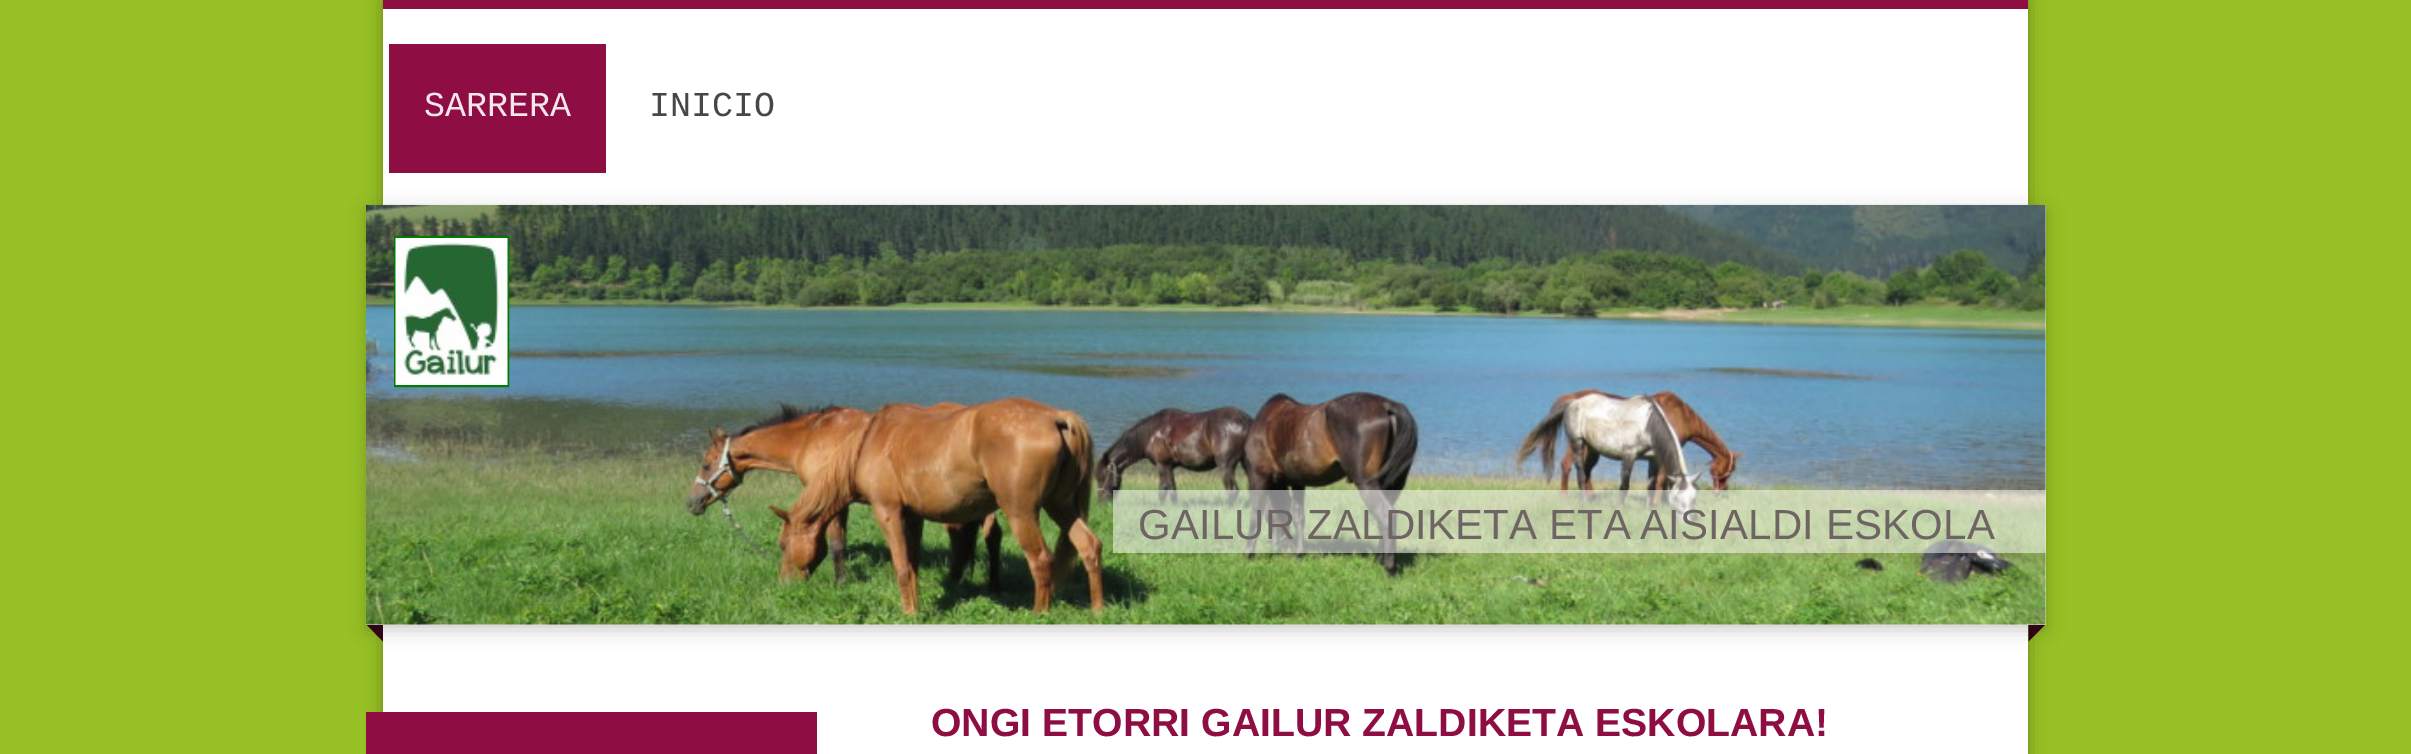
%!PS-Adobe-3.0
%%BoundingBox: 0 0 2411 754
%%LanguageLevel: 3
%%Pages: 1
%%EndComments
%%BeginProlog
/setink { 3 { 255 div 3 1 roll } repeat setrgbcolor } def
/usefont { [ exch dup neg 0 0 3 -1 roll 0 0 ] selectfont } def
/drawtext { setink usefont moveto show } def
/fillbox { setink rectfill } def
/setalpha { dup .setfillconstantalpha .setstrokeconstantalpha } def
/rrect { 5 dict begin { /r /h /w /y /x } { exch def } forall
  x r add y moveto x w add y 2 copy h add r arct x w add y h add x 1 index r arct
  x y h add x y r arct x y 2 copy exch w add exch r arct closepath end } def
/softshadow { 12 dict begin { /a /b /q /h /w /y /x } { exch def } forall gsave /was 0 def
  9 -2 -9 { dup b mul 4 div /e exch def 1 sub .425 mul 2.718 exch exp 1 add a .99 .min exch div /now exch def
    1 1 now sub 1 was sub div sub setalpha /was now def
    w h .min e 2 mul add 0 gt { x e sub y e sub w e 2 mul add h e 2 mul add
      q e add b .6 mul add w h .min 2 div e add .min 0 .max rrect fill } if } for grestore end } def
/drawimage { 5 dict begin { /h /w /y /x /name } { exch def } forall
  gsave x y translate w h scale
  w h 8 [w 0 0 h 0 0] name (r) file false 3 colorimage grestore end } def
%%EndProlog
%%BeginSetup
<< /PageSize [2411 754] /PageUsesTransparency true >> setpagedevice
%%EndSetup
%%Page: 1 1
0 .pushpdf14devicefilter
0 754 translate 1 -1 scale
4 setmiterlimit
0 0 2411 754 151 193 36 fillbox
0 0 0 setink
383 0 1645 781 0 9 0.3 softshadow
383 9 1645 745 255 255 255 fillbox
383 0 1645 9 142 13 66 fillbox
389 44 217 129 142 13 66 fillbox
(SARRERA) 424 116 /LiberationMono-Regular 35 244 231 236 drawtext
(INICIO) 649 116 /LiberationMono-Regular 35 71 71 71 drawtext
0 0 0 setink
366 210 1680 420 0 9 0.2 softshadow
49 4 23 setink
383 606.5 moveto 383 641.5 lineto 366 624 lineto closepath fill
2028.5 641.5 moveto 2028.5 606.5 lineto 2046 624 lineto closepath fill
366 205 1680 420 238 238 238 fillbox
(assets/img1.rgb) 365 204 1681 421 drawimage
3 122 4 setink
2 setlinewidth
395 237 113 149 rectstroke
(assets/img2.rgb) 395 238 113 147 drawimage
0.5 setalpha
1113 490 933 63 255 255 255 fillbox
/LiberationSans-Regular 42 usefont
1 setalpha
111 100 100 setink
1138 539 moveto 0.15 0 (GAILUR ZALDIKETA ETA) ashow
1640 539 moveto 0.15 0 (AISIALDI ESKOLA) ashow
366 712 451 42 142 13 66 fillbox
(ONGI ETORRI GAILUR ZALDIKETA ESKOLARA!) 931 736 /LiberationSans-Bold 39.2 142 13 66 drawtext
.poppdf14devicefilter showpage
%%EOF
